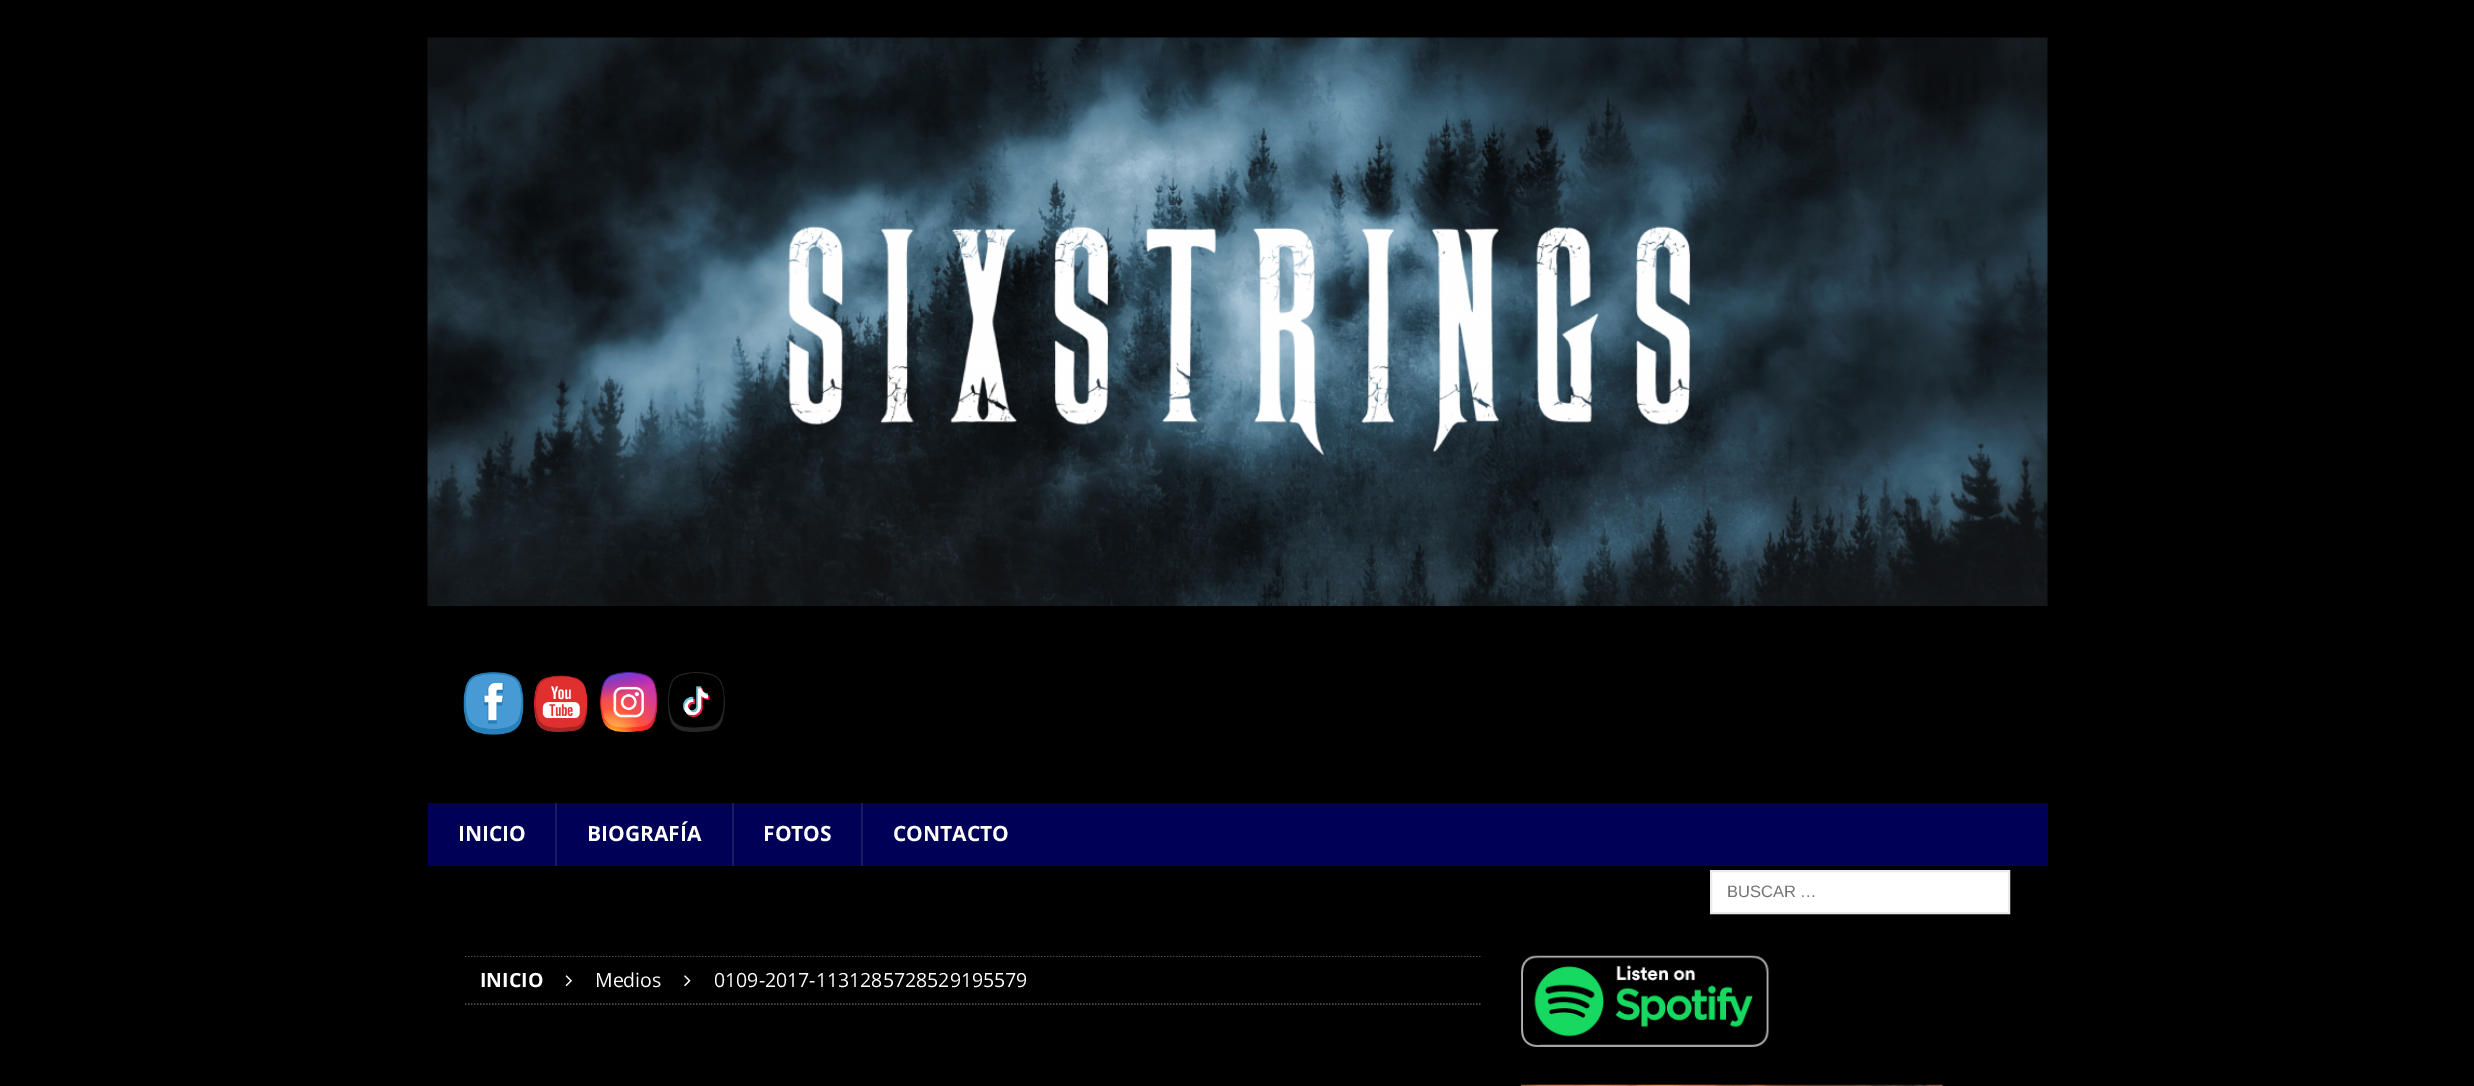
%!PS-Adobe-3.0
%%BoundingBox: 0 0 2474 1086
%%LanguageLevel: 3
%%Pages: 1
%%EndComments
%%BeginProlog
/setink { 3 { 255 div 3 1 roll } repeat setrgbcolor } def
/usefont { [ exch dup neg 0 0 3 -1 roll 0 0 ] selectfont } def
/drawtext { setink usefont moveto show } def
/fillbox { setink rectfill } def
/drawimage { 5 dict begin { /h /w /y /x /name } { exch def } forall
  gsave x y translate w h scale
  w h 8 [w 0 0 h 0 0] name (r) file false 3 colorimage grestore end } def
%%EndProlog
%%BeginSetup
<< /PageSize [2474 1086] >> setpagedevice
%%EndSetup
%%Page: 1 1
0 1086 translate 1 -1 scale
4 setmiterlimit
0 0 2474 1086 0 0 0 fillbox
(assets/img1.rgb) 427 37 1621 569 drawimage
(assets/img2.rgb) 463 672 61 63 drawimage
(assets/img3.rgb) 534 675 54 57 drawimage
(assets/img4.rgb) 600 672 58 60 drawimage
(assets/img5.rgb) 668 672 57 60 drawimage
428 803 1620 63 0 0 86 fillbox
(INICIO) 458 841 /OpenSans-Bold 21 255 255 255 drawtext
555 803 2 63 26 26 103 fillbox
(BIOGRAFÍA) 587 841 /OpenSans-Bold 21 255 255 255 drawtext
732 803 2 63 26 26 103 fillbox
(FOTOS) 763 841 /OpenSans-Bold 21 255 255 255 drawtext
861 803 2 63 26 26 103 fillbox
(CONTACTO) 893 841 /OpenSans-Bold 21 255 255 255 drawtext
1711 871 moveto 2009 871 lineto 2009 913 lineto 1711 913 lineto closepath gsave fill grestore
235 235 235 setink
2 setlinewidth
stroke
(BUSCAR …) 1727 897 /LiberationSans-Regular 16.5 117 117 117 drawtext
gsave
465 956 1017 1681 rectclip
77 77 77 setink
1.5 setlinewidth
[1.5 1.5] 0 setdash
465 956 moveto 1482 956 lineto stroke
grestore
77 77 77 setink
1.5 setlinewidth
[1.5 1.5] 0 setdash
465 1004 moveto 1482 1004 lineto stroke
(INICIO) 480 987 /OpenSans-Bold 19.5 255 255 255 drawtext
(assets/img6.rgb) 565 975 7 12 drawimage
(Medios) 595 987 /OpenSans-Regular 19.5 255 255 255 drawtext
(assets/img7.rgb) 684 975 7 12 drawimage
(0109-2017-1131285728529195579) 714 987 /OpenSans-Regular 19.5 255 255 255 drawtext
(assets/img8.rgb) 1521 955 248 92 drawimage
(assets/img9.rgb) 1521 1084 422 2 drawimage
showpage
%%EOF
